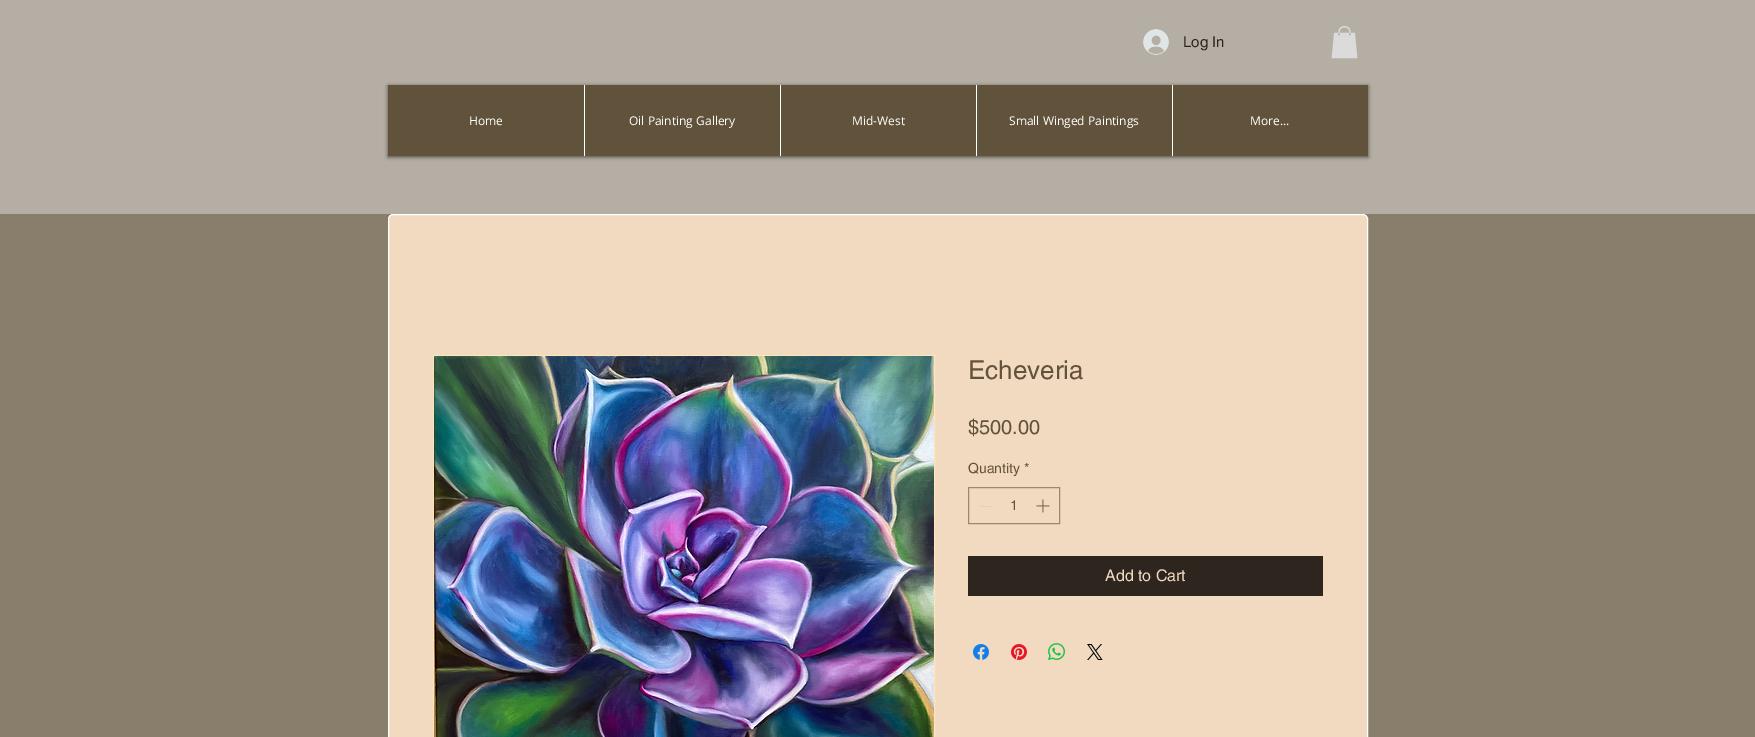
%!PS-Adobe-3.0
%%BoundingBox: 0 0 1755 737
%%LanguageLevel: 3
%%Pages: 1
%%EndComments
%%BeginProlog
/setink { 3 { 255 div 3 1 roll } repeat setrgbcolor } def
/usefont { [ exch dup neg 0 0 3 -1 roll 0 0 ] selectfont } def
/drawtext { setink usefont moveto show } def
/fillbox { setink rectfill } def
/setalpha { dup .setfillconstantalpha .setstrokeconstantalpha } def
/rrect { 5 dict begin { /r /h /w /y /x } { exch def } forall
  x r add y moveto x w add y 2 copy h add r arct x w add y h add x 1 index r arct
  x y h add x y r arct x y 2 copy exch w add exch r arct closepath end } def
/softshadow { 12 dict begin { /a /b /q /h /w /y /x } { exch def } forall gsave /was 0 def
  9 -2 -9 { dup b mul 4 div /e exch def 1 sub .425 mul 2.718 exch exp 1 add a .99 .min exch div /now exch def
    1 1 now sub 1 was sub div sub setalpha /was now def
    w h .min e 2 mul add 0 gt { x e sub y e sub w e 2 mul add h e 2 mul add
      q e add b .6 mul add w h .min 2 div e add .min 0 .max rrect fill } if } for grestore end } def
/drawimage { 5 dict begin { /h /w /y /x /name } { exch def } forall
  gsave x y translate w h scale
  w h 8 [w 0 0 h 0 0] name (r) file false 3 colorimage grestore end } def
%%EndProlog
%%BeginSetup
<< /PageSize [1755 737] /PageUsesTransparency true >> setpagedevice
%%EndSetup
%%Page: 1 1
0 .pushpdf14devicefilter
0 737 translate 1 -1 scale
4 setmiterlimit
0 0 1755 737 137 125 108 fillbox
0 0 1755 214 181 174 164 fillbox
(assets/img1.rgb) 1143 29 26 26 drawimage
(Log In) 1183 47 /helvetica-Regular 15 46 37 30 drawtext
(assets/img2.rgb) 1331 26 27 33 drawimage
0 0 0 setink
388 86 980 71 0 2 0.6 softshadow
388 85 980 71 97 82 59 fillbox
(Home) 469 125 /OpenSans-Regular 12 255 255 255 drawtext
584 85 1 71 255 255 255 fillbox
(Oil Painting Gallery) 629 125 /OpenSans-Regular 12 255 255 255 drawtext
780 85 1 71 255 255 255 fillbox
(Mid-West) 852 125 /OpenSans-Regular 12 255 255 255 drawtext
976 85 1 71 255 255 255 fillbox
(Small Winged Paintings) 1009 125 /OpenSans-Regular 12 255 255 255 drawtext
1172 85 1 71 255 255 255 fillbox
(More...) 1250 125 /OpenSans-Regular 12 255 255 255 drawtext
242 218 193 setink
388.5 214.5 979 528 4.5 rrect gsave fill grestore
255 255 255 setink
stroke
251 231 187 setink
433.5 355.5 501 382 rectstroke
(assets/img3.rgb) 434 356 500 381 drawimage
(Echeveria) 968 379 /helvetica-Regular 26 97 82 59 drawtext
($500.00) 968 434 /helvetica-Regular 20 97 82 59 drawtext
(Quantity *) 968 473 /helvetica-Regular 14 97 82 59 drawtext
155 136 113 setink
968.5 487.5 91 36 rectstroke
980 506 13 1 221 209 196 fillbox
(1) 1010 510 /helvetica-Regular 14 97 82 59 drawtext
(assets/img4.rgb) 1036 499 14 14 drawimage
968 556 355 40 46 37 30 fillbox
(Add to Cart) 1105 581 /helvetica-Regular 16 242 218 193 drawtext
(assets/img5.rgb) 973 644 16 16 drawimage
(assets/img6.rgb) 1011 644 16 16 drawimage
(assets/img7.rgb) 1048 643 17 17 drawimage
(assets/img8.rgb) 1087 644 16 16 drawimage
.poppdf14devicefilter showpage
%%EOF
